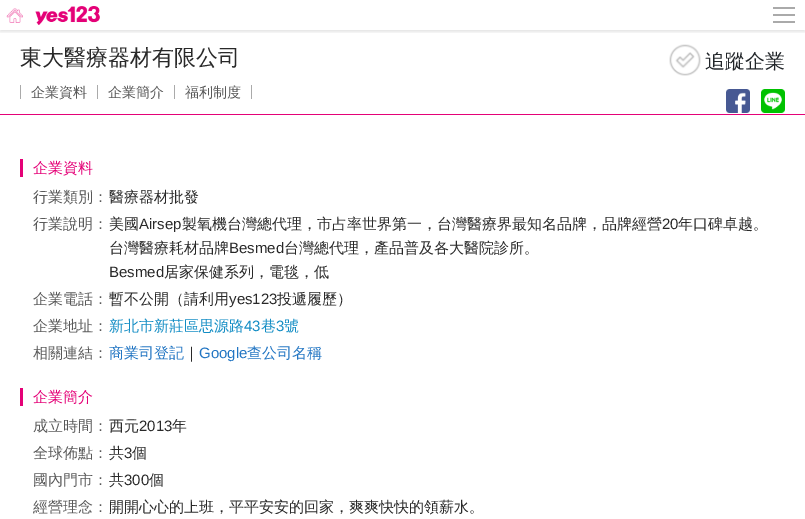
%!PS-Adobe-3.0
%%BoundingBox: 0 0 805 519
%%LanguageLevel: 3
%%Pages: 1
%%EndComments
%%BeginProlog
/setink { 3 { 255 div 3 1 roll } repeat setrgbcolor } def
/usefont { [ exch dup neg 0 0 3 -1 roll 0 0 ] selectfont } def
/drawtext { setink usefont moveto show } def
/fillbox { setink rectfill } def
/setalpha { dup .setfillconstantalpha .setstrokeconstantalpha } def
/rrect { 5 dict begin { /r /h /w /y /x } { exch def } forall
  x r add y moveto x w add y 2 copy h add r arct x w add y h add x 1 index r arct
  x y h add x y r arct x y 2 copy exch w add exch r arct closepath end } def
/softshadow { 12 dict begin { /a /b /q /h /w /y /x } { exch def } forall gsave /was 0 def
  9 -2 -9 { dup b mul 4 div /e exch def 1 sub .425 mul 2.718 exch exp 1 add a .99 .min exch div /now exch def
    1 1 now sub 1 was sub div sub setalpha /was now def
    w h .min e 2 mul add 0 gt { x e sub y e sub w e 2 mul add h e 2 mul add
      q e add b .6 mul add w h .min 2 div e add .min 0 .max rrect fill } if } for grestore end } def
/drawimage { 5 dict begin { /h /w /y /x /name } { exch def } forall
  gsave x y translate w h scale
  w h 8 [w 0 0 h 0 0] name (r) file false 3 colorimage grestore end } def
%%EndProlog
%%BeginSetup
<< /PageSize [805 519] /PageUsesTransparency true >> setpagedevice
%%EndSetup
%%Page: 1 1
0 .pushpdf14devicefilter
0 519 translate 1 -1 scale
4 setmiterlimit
0 0 805 519 255 255 255 fillbox
gsave
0 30 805 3 rectclip
0 0 0 setink
0 2 805 30 0 1.5 0.1 softshadow
grestore
(assets/img1.rgb) 6 8 17 15 drawimage
(assets/img2.rgb) 35 6 65 19 drawimage
773 14 22 2 170 170 170 fillbox
773 7 22 2 170 170 170 fillbox
773 21 22 2 170 170 170 fillbox
0 114 805 1 228 1 119 fillbox
(東大醫療器材有限公司) 20 65 /WenQuanYiZenHei-Medium 22 41 41 41 drawtext
97 85 1 14 170 170 170 fillbox
20 85 1 14 170 170 170 fillbox
(企業資料) 31 97 /WenQuanYiZenHei-Medium 14 89 89 89 drawtext
174 85 1 14 170 170 170 fillbox
(企業簡介) 108 97 /WenQuanYiZenHei-Medium 14 89 89 89 drawtext
251 85 1 14 170 170 170 fillbox
(福利制度) 185 97 /WenQuanYiZenHei-Medium 14 89 89 89 drawtext
(assets/img3.rgb) 669 44 32 32 drawimage
(追蹤企業) 705 68 /WenQuanYiZenHei-Medium 20 33 37 41 drawtext
(assets/img4.rgb) 726 89 24 24 drawimage
(assets/img5.rgb) 761 89 24 24 drawimage
20 159 3 18 228 1 119 fillbox
(企業資料) 33 173 /WenQuanYiZenHei-Medium 15 228 1 119 drawtext
(行業類別：) 33 202 /WenQuanYiZenHei-Medium 15 89 89 89 drawtext
(醫療器材批發) 109 202 /WenQuanYiZenHei-Medium 15 41 41 41 drawtext
(行業說明：) 33 229 /WenQuanYiZenHei-Medium 15 89 89 89 drawtext
(美國) 109 229 /WenQuanYiZenHei-Medium 15 41 41 41 drawtext
(Airsep) 139 229 /LiberationSans-Regular 15 41 41 41 drawtext
(製氧機台灣總代理，市占率世界第一，台灣醫療界最知名品牌，品牌經營) 182 229 /WenQuanYiZenHei-Medium 15 41 41 41 drawtext
(20) 662 229 /LiberationSans-Regular 15 41 41 41 drawtext
(年口碑卓越。) 678 229 /WenQuanYiZenHei-Medium 15 41 41 41 drawtext
(台灣醫療耗材品牌) 109 253 /WenQuanYiZenHei-Medium 15 41 41 41 drawtext
(Besmed) 229 253 /LiberationSans-Regular 15 41 41 41 drawtext
(台灣總代理，產品普及各大醫院診所。) 284 253 /WenQuanYiZenHei-Medium 15 41 41 41 drawtext
(Besmed) 109 277 /LiberationSans-Regular 15 41 41 41 drawtext
(居家保健系列，電毯，低) 164 277 /WenQuanYiZenHei-Medium 15 41 41 41 drawtext
(企業電話：) 33 304 /WenQuanYiZenHei-Medium 15 89 89 89 drawtext
(暫不公開（請利用) 109 304 /WenQuanYiZenHei-Medium 15 41 41 41 drawtext
(yes123) 229 304 /LiberationSans-Regular 15 41 41 41 drawtext
(投遞履歷）) 277 304 /WenQuanYiZenHei-Medium 15 41 41 41 drawtext
(企業地址：) 33 331 /WenQuanYiZenHei-Medium 15 89 89 89 drawtext
(新北市新莊區思源路) 109 331 /WenQuanYiZenHei-Medium 15 19 141 196 drawtext
(43) 244 331 /LiberationSans-Regular 15 19 141 196 drawtext
(巷) 261 331 /WenQuanYiZenHei-Medium 15 19 141 196 drawtext
(3) 276 331 /LiberationSans-Regular 15 19 141 196 drawtext
(號) 284 331 /WenQuanYiZenHei-Medium 15 19 141 196 drawtext
(相關連結：) 33 358 /WenQuanYiZenHei-Medium 15 89 89 89 drawtext
(商業司登記) 109 358 /WenQuanYiZenHei-Medium 15 35 118 195 drawtext
(｜) 184 358 /WenQuanYiZenHei-Medium 15 41 41 41 drawtext
(Google) 199 358 /LiberationSans-Regular 15 35 118 195 drawtext
(查公司名稱) 247 358 /WenQuanYiZenHei-Medium 15 35 118 195 drawtext
20 388 3 18 228 1 119 fillbox
(企業簡介) 33 402 /WenQuanYiZenHei-Medium 15 228 1 119 drawtext
(成立時間：) 33 431 /WenQuanYiZenHei-Medium 15 89 89 89 drawtext
(西元) 109 431 /WenQuanYiZenHei-Medium 15 41 41 41 drawtext
(2013) 139 431 /LiberationSans-Regular 15 41 41 41 drawtext
(年) 172 431 /WenQuanYiZenHei-Medium 15 41 41 41 drawtext
(全球佈點：) 33 458 /WenQuanYiZenHei-Medium 15 89 89 89 drawtext
(共) 109 458 /WenQuanYiZenHei-Medium 15 41 41 41 drawtext
(3) 124 458 /LiberationSans-Regular 15 41 41 41 drawtext
(個) 132 458 /WenQuanYiZenHei-Medium 15 41 41 41 drawtext
(國內門市：) 33 485 /WenQuanYiZenHei-Medium 15 89 89 89 drawtext
(共) 109 485 /WenQuanYiZenHei-Medium 15 41 41 41 drawtext
(300) 124 485 /LiberationSans-Regular 15 41 41 41 drawtext
(個) 149 485 /WenQuanYiZenHei-Medium 15 41 41 41 drawtext
(經營理念：) 33 512 /WenQuanYiZenHei-Medium 15 89 89 89 drawtext
(開開心心的上班，平平安安的回家，爽爽快快的領薪水。) 109 512 /WenQuanYiZenHei-Medium 15 41 41 41 drawtext
.poppdf14devicefilter showpage
%%EOF
